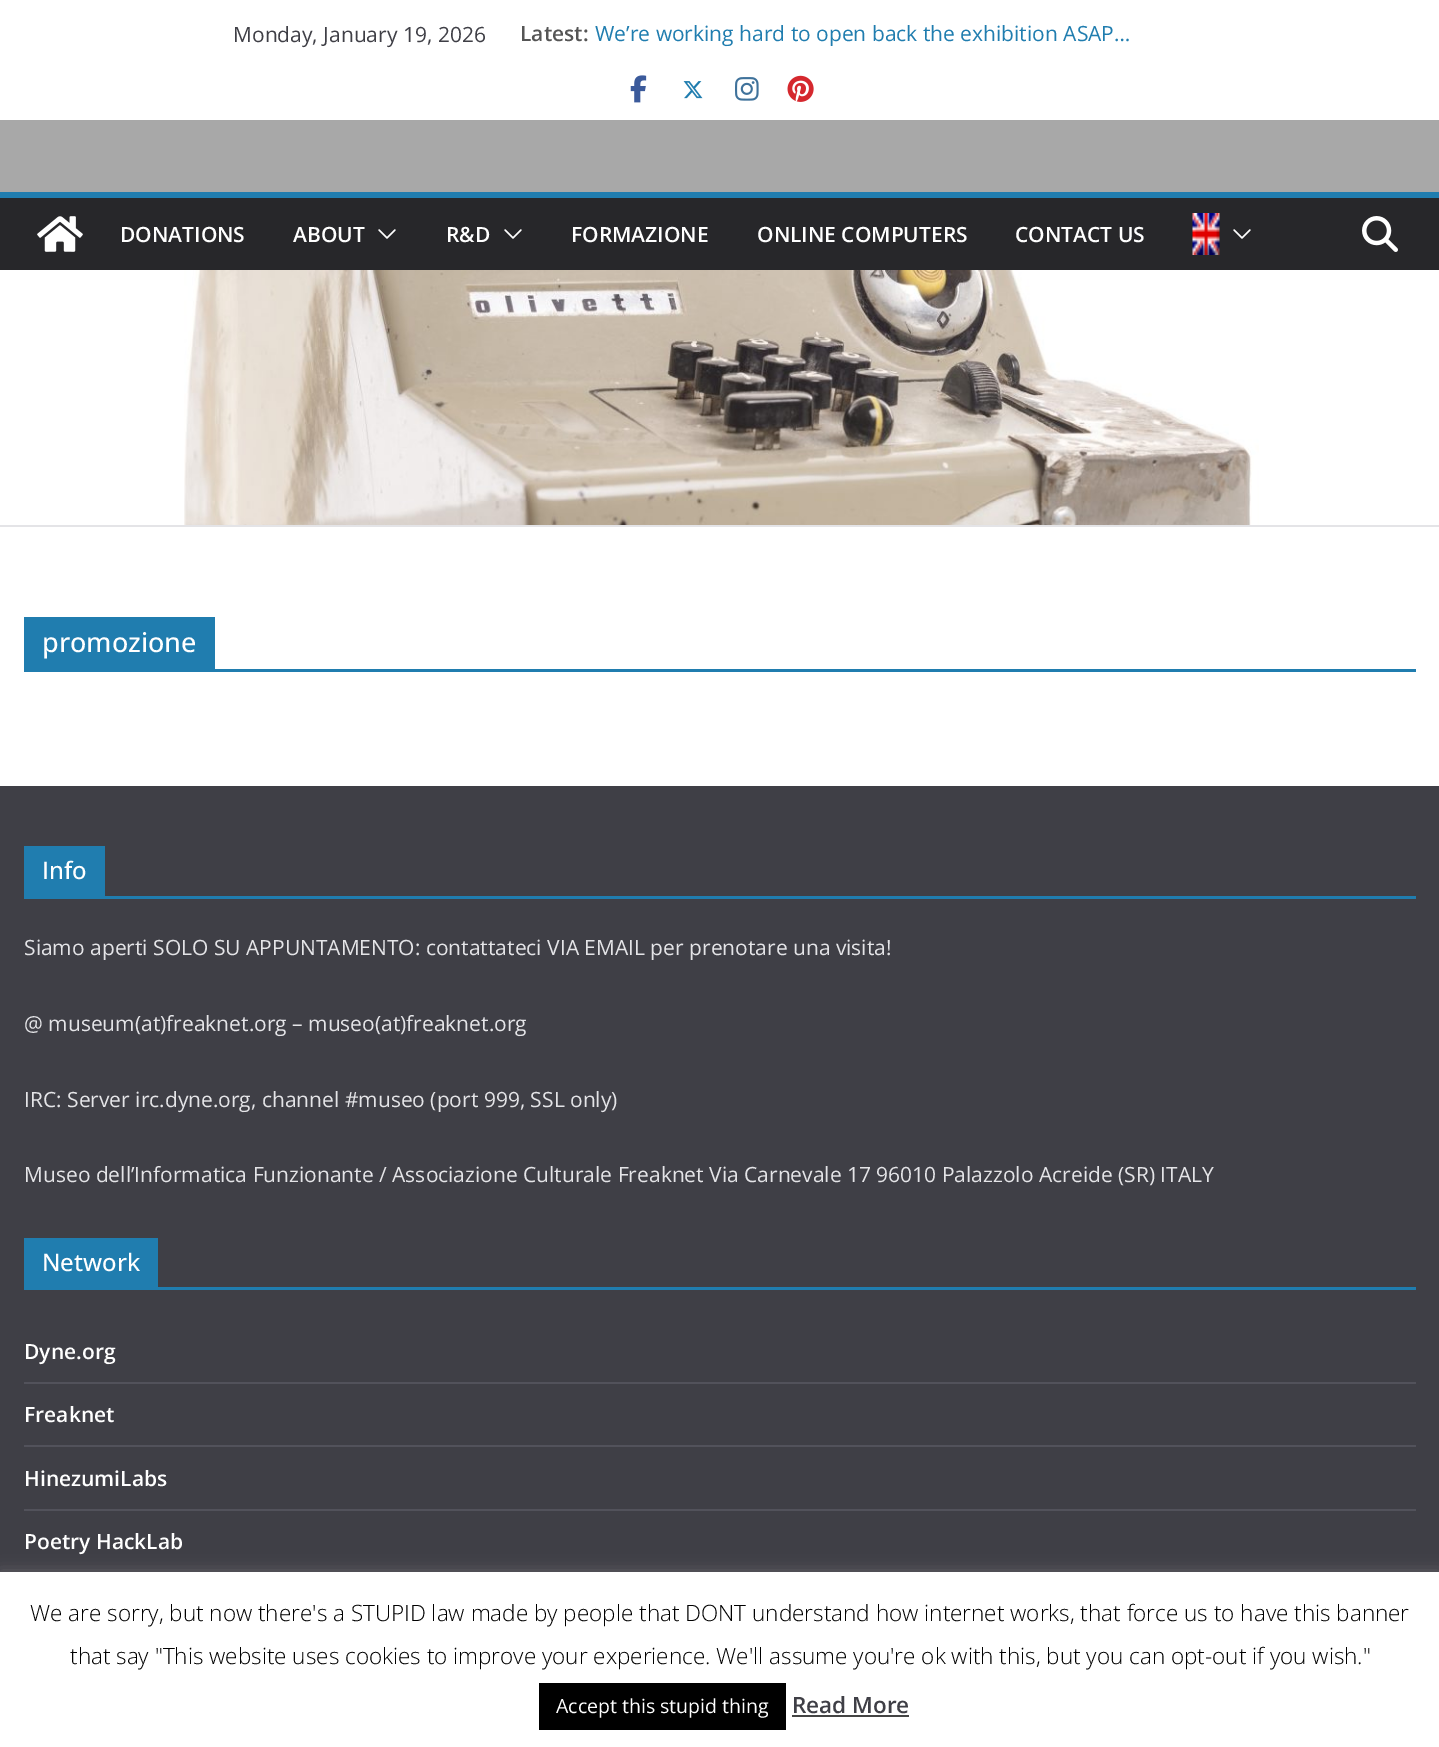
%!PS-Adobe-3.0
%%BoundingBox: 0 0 1439 1747
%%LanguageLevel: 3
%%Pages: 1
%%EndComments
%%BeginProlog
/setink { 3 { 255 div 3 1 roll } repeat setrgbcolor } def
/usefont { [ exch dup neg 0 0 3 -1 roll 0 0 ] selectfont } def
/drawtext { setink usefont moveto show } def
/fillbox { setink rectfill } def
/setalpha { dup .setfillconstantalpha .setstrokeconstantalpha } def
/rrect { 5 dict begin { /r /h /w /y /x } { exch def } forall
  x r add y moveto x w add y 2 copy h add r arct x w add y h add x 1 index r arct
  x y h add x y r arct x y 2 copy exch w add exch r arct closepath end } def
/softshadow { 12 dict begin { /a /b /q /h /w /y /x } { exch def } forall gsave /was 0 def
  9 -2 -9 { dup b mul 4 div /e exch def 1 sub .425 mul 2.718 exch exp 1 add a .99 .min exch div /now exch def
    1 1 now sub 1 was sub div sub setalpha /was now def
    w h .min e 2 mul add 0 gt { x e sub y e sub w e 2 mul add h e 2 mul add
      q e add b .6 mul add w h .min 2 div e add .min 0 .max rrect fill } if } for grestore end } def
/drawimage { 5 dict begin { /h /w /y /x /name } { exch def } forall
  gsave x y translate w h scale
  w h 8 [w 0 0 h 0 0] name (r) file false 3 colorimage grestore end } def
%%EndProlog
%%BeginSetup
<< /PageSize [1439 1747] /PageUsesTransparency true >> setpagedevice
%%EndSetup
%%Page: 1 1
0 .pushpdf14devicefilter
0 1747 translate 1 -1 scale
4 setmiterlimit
0 0 1439 1747 255 255 255 fillbox
(Monday, January 19, 2026) 233 42 /OpenSans-Regular 21 63 63 70 drawtext
(Latest:) 520 41 /OpenSans-SemiBold 21 85 85 85 drawtext
(We’re working hard to open back the exhibition ASAP…) 595 41 /OpenSans-Regular 21 32 125 175 drawtext
(assets/img1.rgb) 630 75 17 28 drawimage
(assets/img2.rgb) 683 81 20 18 drawimage
(assets/img3.rgb) 735 77 24 24 drawimage
(assets/img4.rgb) 787 75 27 27 drawimage
0 120 1439 72 168 168 168 fillbox
0 198 1439 72 39 39 42 fillbox
0 192 1439 6 32 125 175 fillbox
(assets/img5.rgb) 37 216 46 36 drawimage
(DONATIONS) 120 242 /OpenSans-SemiBold 21 255 255 255 drawtext
(ABOUT) 293 242 /OpenSans-SemiBold 21 255 255 255 drawtext
(assets/img6.rgb) 378 229 18 10 drawimage
(R&D) 446 242 /OpenSans-SemiBold 21 255 255 255 drawtext
(assets/img6.rgb) 504 229 18 10 drawimage
(FORMAZIONE) 571 242 /OpenSans-SemiBold 21 255 255 255 drawtext
(ONLINE COMPUTERS) 757 242 /OpenSans-SemiBold 21 255 255 255 drawtext
(CONTACT US) 1015 242 /OpenSans-SemiBold 21 255 255 255 drawtext
(assets/img7.rgb) 1192 213 28 42 drawimage
(assets/img6.rgb) 1233 229 18 10 drawimage
(assets/img8.rgb) 1362 216 36 36 drawimage
(assets/img9.rgb) 184 270 1075 255 drawimage
0 525 1439 2 228 228 231 fillbox
24 669 1392 3 32 125 175 fillbox
24 617 191 52 32 125 175 fillbox
(promozione) 42 652 /OpenSans-Medium 27 255 255 255 drawtext
0 786 1439 786 63 63 70 fillbox
24 896 1392 3 32 125 175 fillbox
24 846 81 50 32 125 175 fillbox
(Info) 42 879 /OpenSans-Medium 24 255 255 255 drawtext
(Siamo aperti SOLO SU APPUNTAMENTO: contattateci VIA EMAIL per prenotare una visita!) 24 955 /OpenSans-Regular 21 228 228 231 drawtext
(@ museum\(at\)freaknet.org – museo\(at\)freaknet.org) 24 1031 /OpenSans-Regular 21 228 228 231 drawtext
(IRC: Server irc.dyne.org, channel #museo \(port 999, SSL only\)) 24 1107 /OpenSans-Regular 21 228 228 231 drawtext
(Museo dell’Informatica Funzionante / Associazione Culturale Freaknet Via Carnevale 17 96010 Palazzolo Acreide \(SR\) ITALY) 24 1182 /OpenSans-Regular 21 228 228 231 drawtext
24 1287 1392 3 32 125 175 fillbox
24 1238 134 49 32 125 175 fillbox
(Network) 42 1271 /OpenSans-Medium 24 255 255 255 drawtext
24 1382 1392 2 82 82 91 fillbox
(Dyne.org) 24 1359 /OpenSans-SemiBold 21 255 255 255 drawtext
24 1445 1392 2 82 82 91 fillbox
(Freaknet) 24 1422 /OpenSans-SemiBold 21 255 255 255 drawtext
24 1509 1392 2 82 82 91 fillbox
(HinezumiLabs) 24 1486 /OpenSans-SemiBold 21 255 255 255 drawtext
(Poetry HackLab) 24 1549 /OpenSans-SemiBold 21 255 255 255 drawtext
172 171 171 setink
0 1571 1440 175 0 7.5 0.3 softshadow
0 1572 1439 175 255 255 255 fillbox
(We are sorry, but now there's a STUPID law made by people that DONT understand how internet works, that force us to have this banner) 30 1621 /OpenSans-Light 22.5 0 0 0 drawtext
(that say "This website uses cookies to improve your experience. We'll assume you're ok with this, but you can opt-out if you wish.") 70 1664 /OpenSans-Light 22.5 0 0 0 drawtext
539 1683 247 47 0 0 0 fillbox
(Accept this stupid thing) 556 1713 /OpenSans-Regular 19.5 255 255 255 drawtext
(Read More) 792 1713 /OpenSans-SemiBold 22.5 63 63 70 drawtext
792 1715 117 2 68 68 68 fillbox
.poppdf14devicefilter showpage
%%EOF
